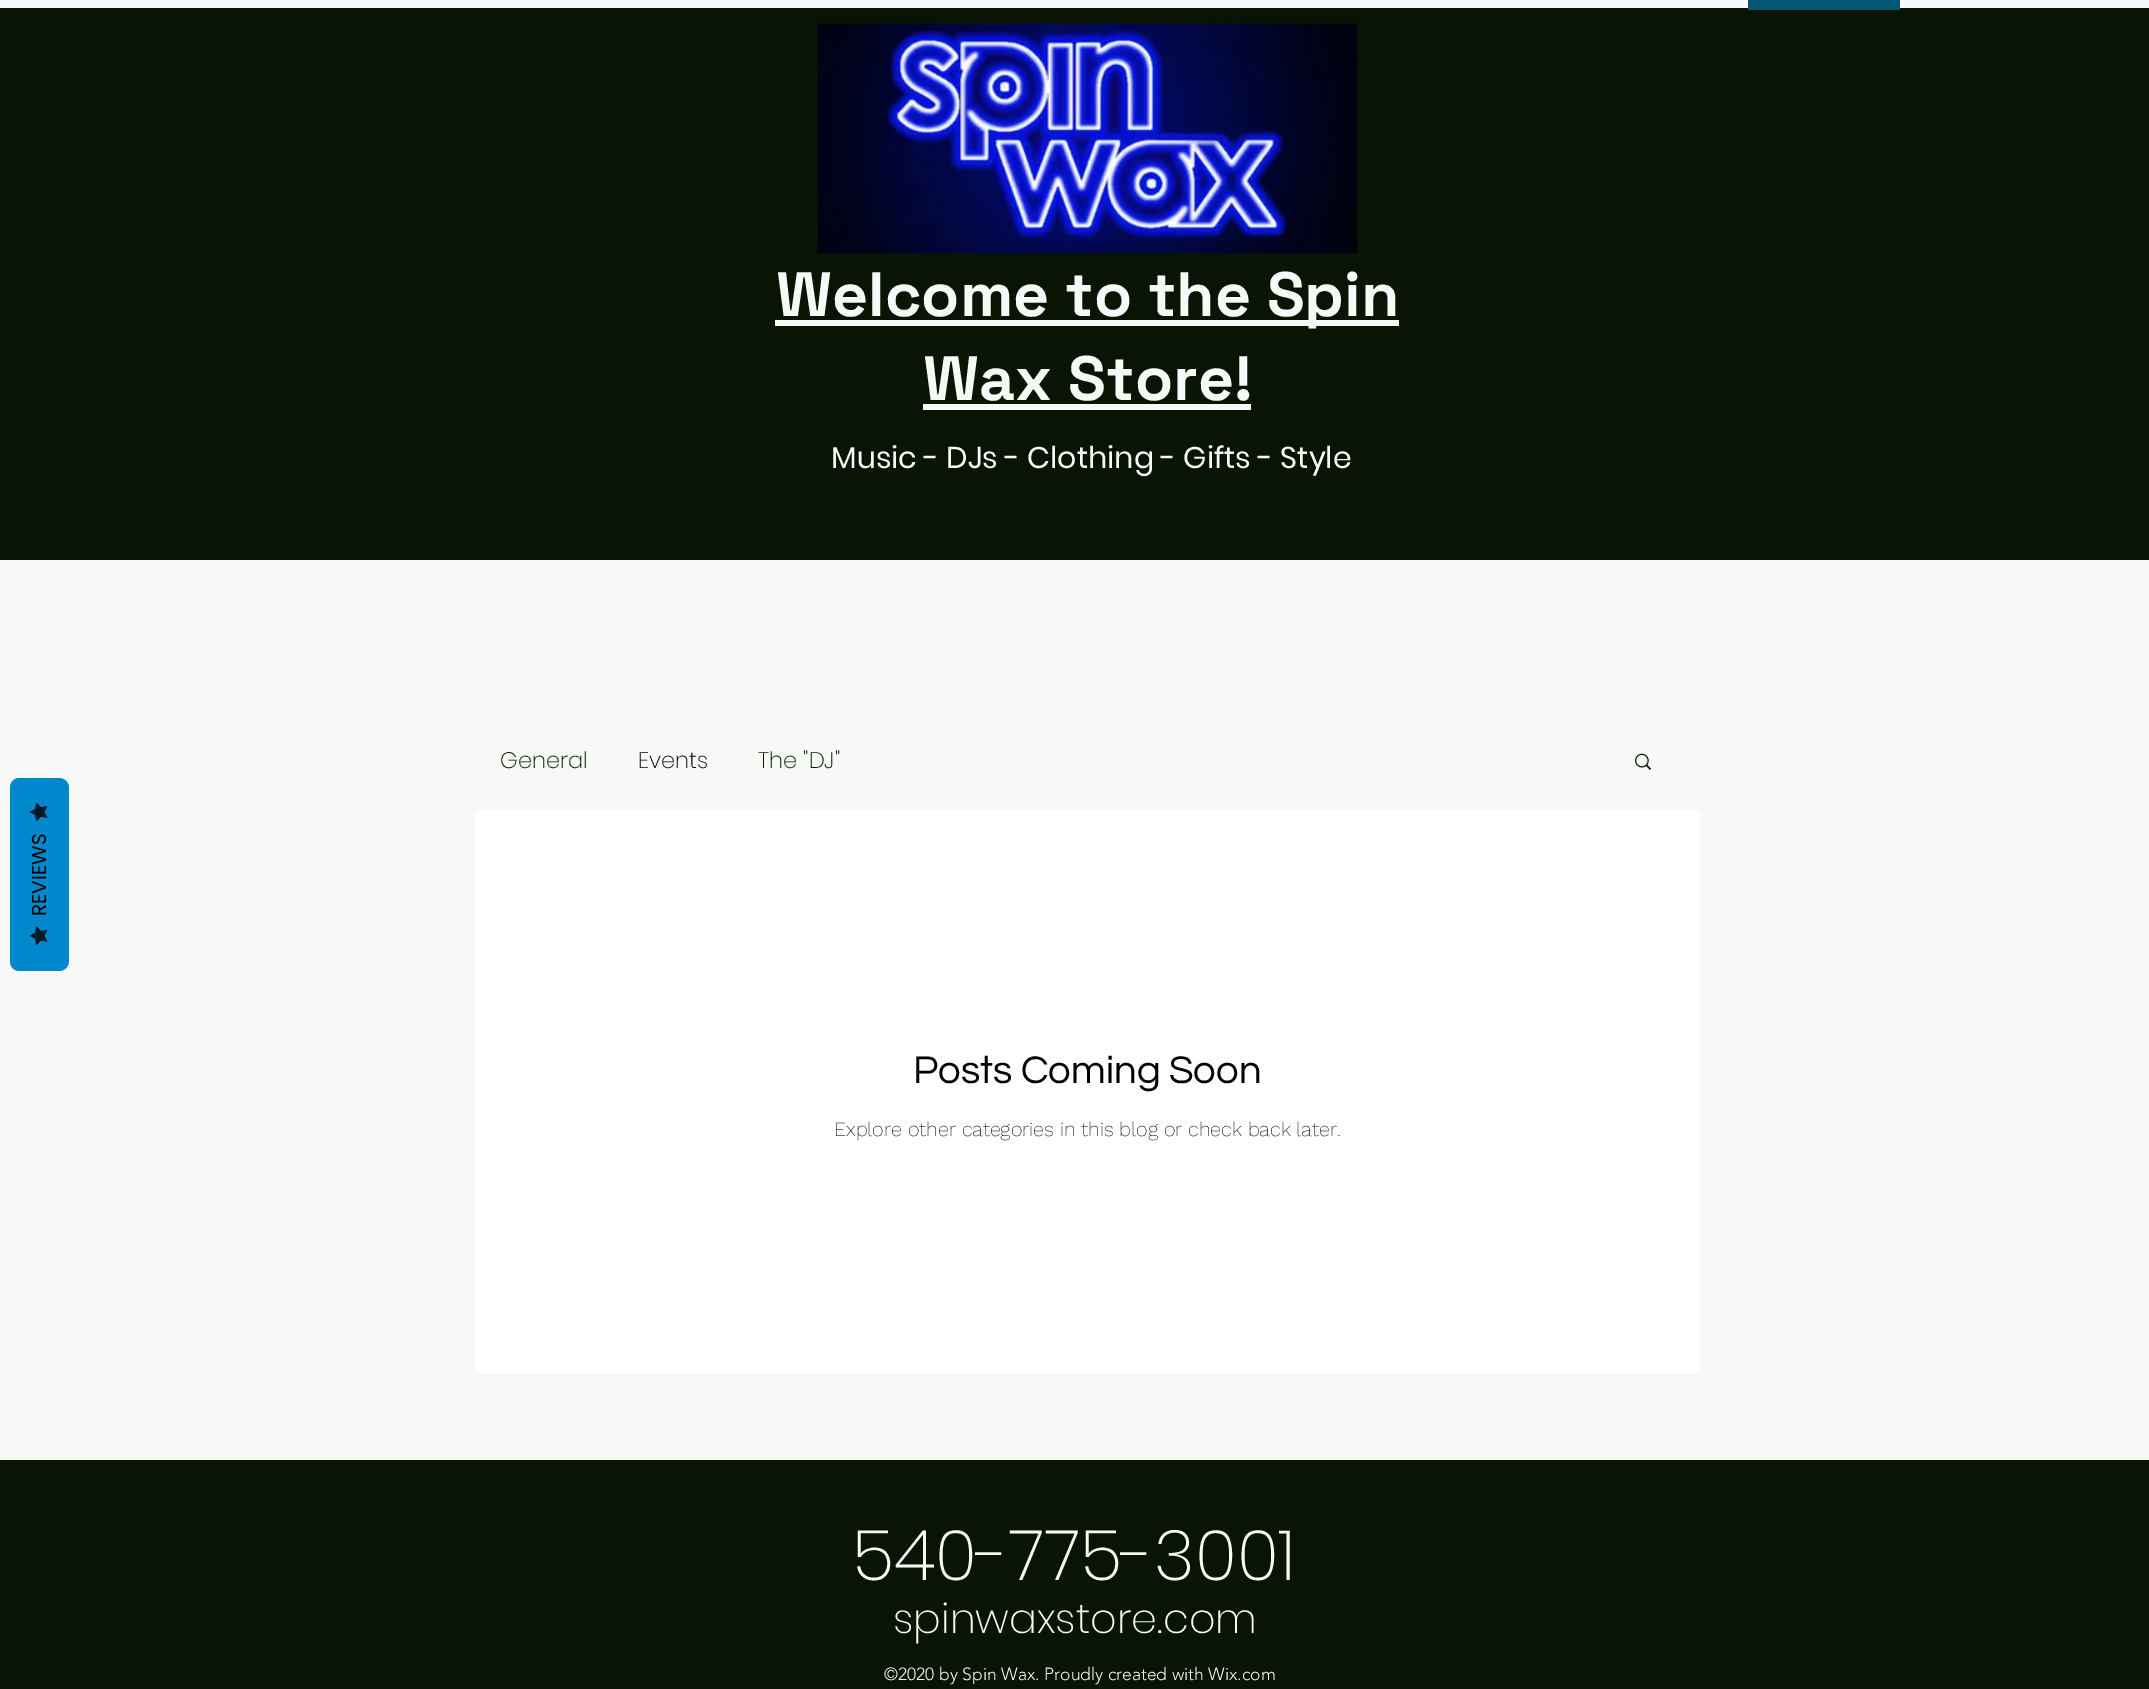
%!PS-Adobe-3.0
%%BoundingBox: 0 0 2149 1689
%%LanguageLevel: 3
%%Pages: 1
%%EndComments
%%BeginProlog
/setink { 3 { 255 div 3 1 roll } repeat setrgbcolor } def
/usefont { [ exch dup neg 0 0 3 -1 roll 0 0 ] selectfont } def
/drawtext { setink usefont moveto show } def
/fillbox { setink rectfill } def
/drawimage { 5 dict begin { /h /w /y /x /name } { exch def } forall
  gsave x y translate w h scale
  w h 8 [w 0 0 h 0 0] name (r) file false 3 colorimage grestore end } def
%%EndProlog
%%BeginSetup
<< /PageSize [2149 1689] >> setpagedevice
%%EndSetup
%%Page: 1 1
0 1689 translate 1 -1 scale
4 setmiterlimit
0 0 2149 1689 246 249 245 fillbox
0 136 204 setink
10 961 moveto 10 788 lineto 10 782 14 778 20 778 curveto 59 778 lineto 64 778 69 782 69 788 curveto 69 961 lineto 69 967 64 971 59 971 curveto 20 971 lineto 14 971 10 967 10 961 curveto closepath fill
(assets/img1.rgb) 29 802 19 20 drawimage
/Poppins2-Regular 20 usefont
0 0 0 setink
gsave 46 916 translate -90 rotate 0 0 moveto (REVIEWS) show grestore
(assets/img2.rgb) 29 926 19 19 drawimage
0 8 2149 552 9 20 5 fillbox
1748 0 152 10 3 87 114 fillbox
(assets/img3.rgb) 817 23 541 231 drawimage
775 320 624 6 246 249 245 fillbox
(Welcome to the Spin) 776 316 /SpaceGrotesk-Bold 62.5 246 249 245 drawtext
(Wax Store!) 923 400 /SpaceGrotesk-Bold 62.5 246 249 245 drawtext
923 404 328 6 246 249 245 fillbox
(Music - DJs - Clothing - Gifts - Style) 831 468 /Poppins-Regular 30 246 249 245 drawtext
(General) 500 768 /Poppins-ExtraLight 22.5 9 20 5 drawtext
(Events) 638 768 /Poppins-ExtraLight 22.5 4 4 31 drawtext
(The "DJ") 758 768 /Poppins-ExtraLight 22.5 9 20 5 drawtext
(assets/img4.rgb) 1635 753 17 17 drawimage
475 810 1225 563 255 255 255 fillbox
(Posts Coming Soon) 913 1083 /Questrial-Regular 40 0 0 0 drawtext
(Explore other categories in this blog or check back later.) 834 1136 /WorkSans-ExtraLight 20 0 0 0 drawtext
0 1460 2149 229 9 20 5 fillbox
(540-775-3001) 852 1580 /Poppins-ExtraLight 70 246 249 245 drawtext
(spinwaxstore.com) 893 1633 /Poppins-ExtraLight 41.25 246 249 245 drawtext
(©2020 by Spin Wax. Proudly created with Wix.com) 884 1680 /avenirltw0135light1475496-Light 17.5 246 249 245 drawtext
showpage
%%EOF
